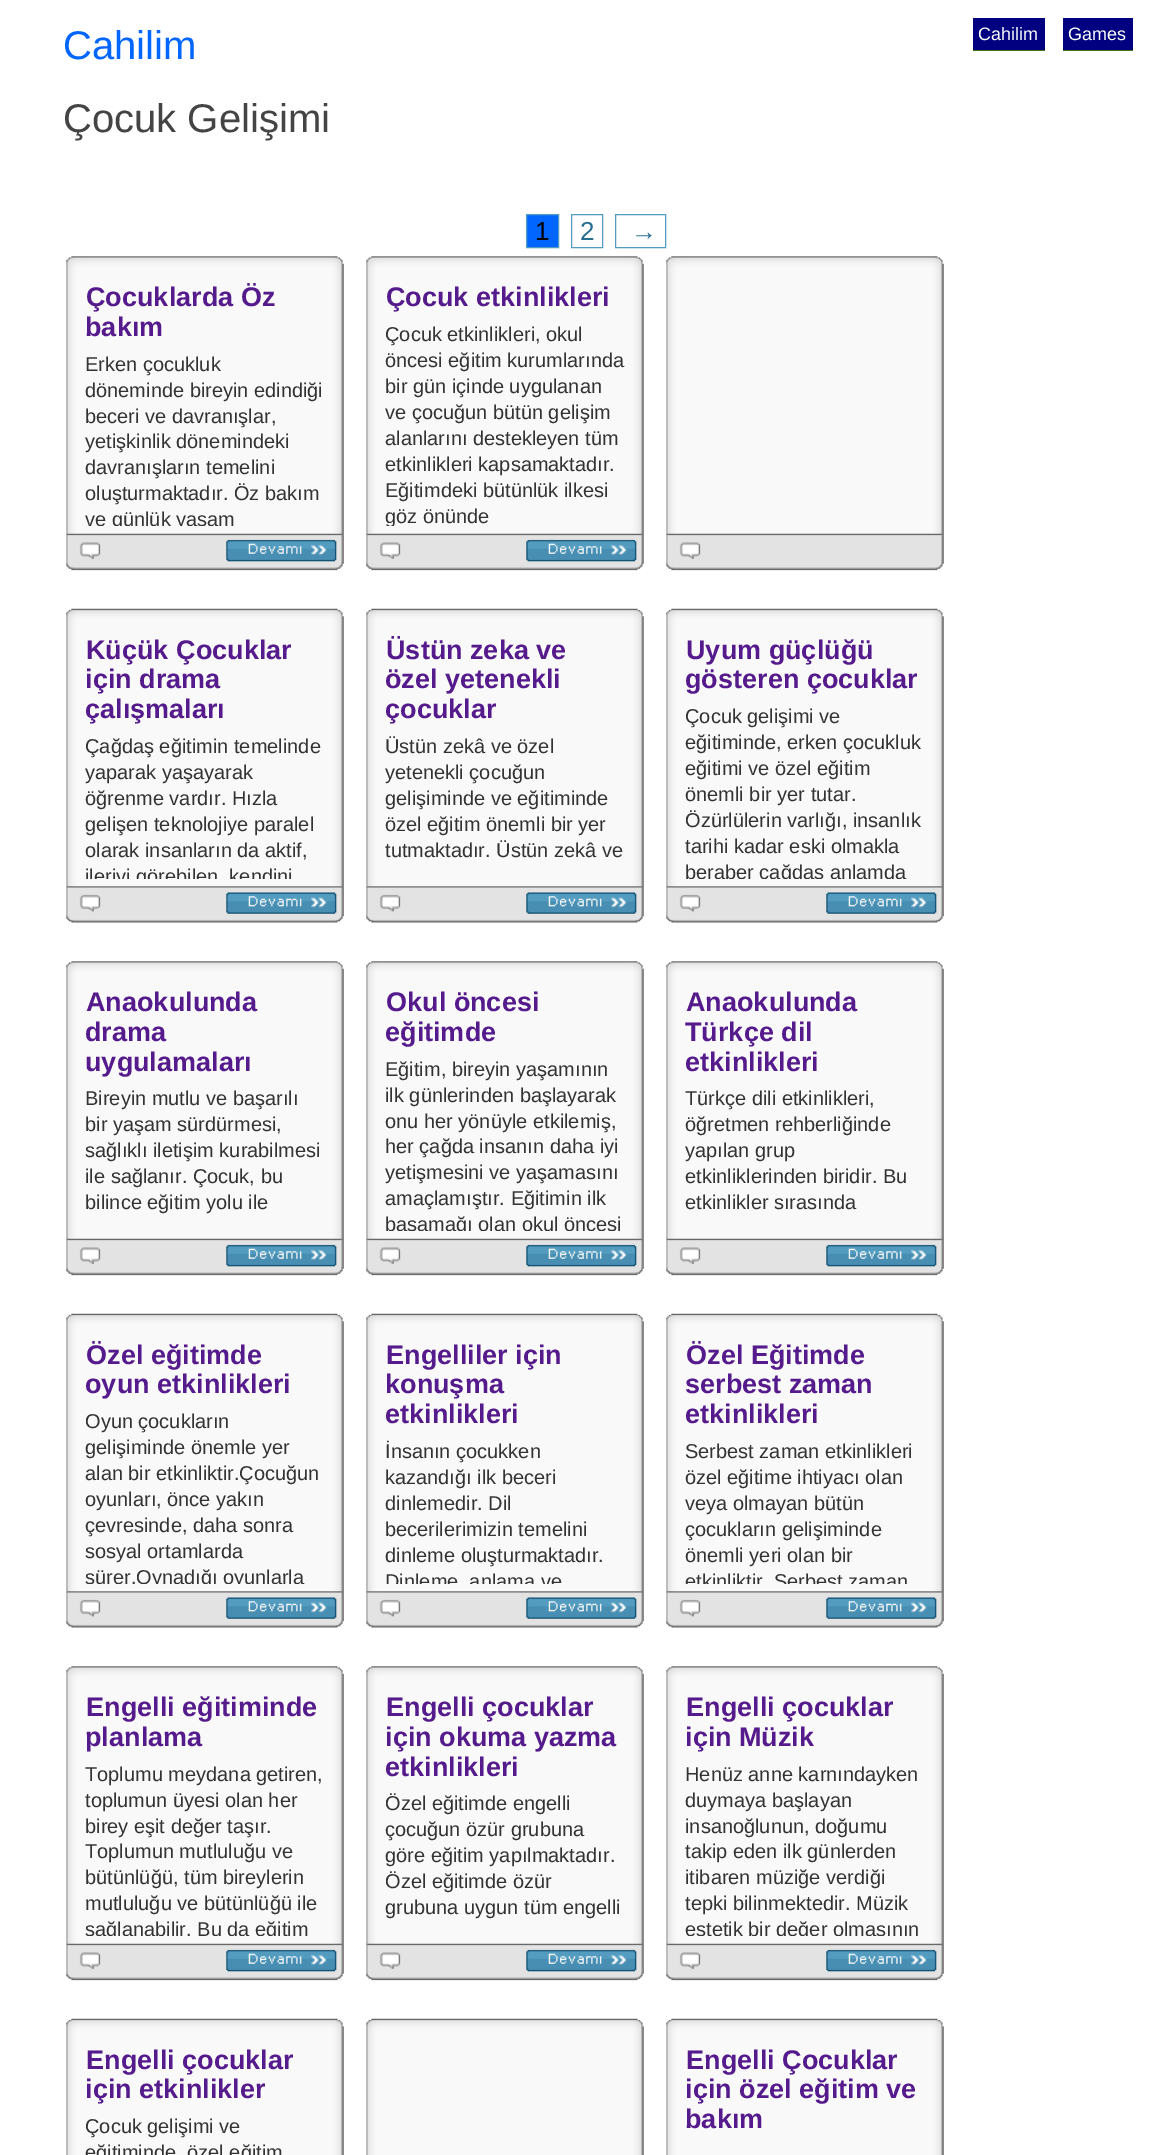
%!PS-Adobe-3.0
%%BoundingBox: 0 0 1152 2155
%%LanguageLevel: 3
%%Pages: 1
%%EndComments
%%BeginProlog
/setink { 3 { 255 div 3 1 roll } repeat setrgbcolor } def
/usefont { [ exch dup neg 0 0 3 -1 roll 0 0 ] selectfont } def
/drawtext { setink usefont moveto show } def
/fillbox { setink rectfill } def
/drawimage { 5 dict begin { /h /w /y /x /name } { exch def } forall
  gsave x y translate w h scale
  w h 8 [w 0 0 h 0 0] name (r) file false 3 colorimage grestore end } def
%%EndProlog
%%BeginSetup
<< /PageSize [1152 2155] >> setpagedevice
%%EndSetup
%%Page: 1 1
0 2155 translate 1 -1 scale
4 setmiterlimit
0 0 1152 2155 255 255 255 fillbox
(Cahilim) 63 59 /LiberationSans-Regular 40 0 102 255 drawtext
(Çocuk Gelişimi) 63 132 /LiberationSans-Regular 40 68 68 68 drawtext
973 18 72 32 0 0 128 fillbox
973 50 72 1 63 117 19 fillbox
(Cahilim) 978 40 /LiberationSans-Regular 18 255 255 255 drawtext
1063 18 70 32 0 0 128 fillbox
1063 50 70 1 63 117 19 fillbox
(Games) 1068 40 /LiberationSans-Regular 18 255 255 255 drawtext
0 102 255 setink
526.5 214.5 moveto 558.5 214.5 lineto 558.5 247.5 lineto 526.5 247.5 lineto closepath gsave fill grestore
83 156 192 setink
stroke
(1) 535 240 /LiberationSans-Regular 26 0 0 0 drawtext
83 156 192 setink
571.5 214.5 31 33 rectstroke
(2) 580 240 /LiberationSans-Regular 26 41 109 144 drawtext
83 156 192 setink
615.5 214.5 50 33 rectstroke
(→) 631 240 /LiberationSans-Regular 26 41 109 144 drawtext
(assets/img1.rgb) 66 256 278 315 drawimage
(Çocuklarda Öz) 86 306 /LiberationSans-Bold 27 85 26 139 drawtext
(bakım) 85 336 /LiberationSans-Bold 27 85 26 139 drawtext
(Erken çocukluk) 85 371 /LiberationSans-Regular 20 51 51 51 drawtext
(döneminde bireyin edindiği) 85 397 /LiberationSans-Regular 20 51 51 51 drawtext
(beceri ve davranışlar,) 85 423 /LiberationSans-Regular 20 51 51 51 drawtext
(yetişkinlik dönemindeki) 85 448 /LiberationSans-Regular 20 51 51 51 drawtext
(davranışların temelini) 85 474 /LiberationSans-Regular 20 51 51 51 drawtext
(oluşturmaktadır. Öz bakım) 85 500 /LiberationSans-Regular 20 51 51 51 drawtext
gsave
63 253 285 273 rectclip
(ve günlük yaşam) 85 526 /LiberationSans-Regular 20 51 51 51 drawtext
grestore
(assets/img2.rgb) 226 539 111 23 drawimage
(assets/img1.rgb) 366 256 278 315 drawimage
(Çocuk etkinlikleri) 386 306 /LiberationSans-Bold 27 85 26 139 drawtext
(Çocuk etkinlikleri, okul) 385 341 /LiberationSans-Regular 20 51 51 51 drawtext
(öncesi eğitim kurumlarında) 385 367 /LiberationSans-Regular 20 51 51 51 drawtext
(bir gün içinde uygulanan) 385 393 /LiberationSans-Regular 20 51 51 51 drawtext
(ve çocuğun bütün gelişim) 385 419 /LiberationSans-Regular 20 51 51 51 drawtext
(alanlarını destekleyen tüm) 385 445 /LiberationSans-Regular 20 51 51 51 drawtext
(etkinlikleri kapsamaktadır.) 385 471 /LiberationSans-Regular 20 51 51 51 drawtext
(Eğitimdeki bütünlük ilkesi) 385 497 /LiberationSans-Regular 20 51 51 51 drawtext
gsave
363 253 285 273 rectclip
(göz önünde) 385 523 /LiberationSans-Regular 20 51 51 51 drawtext
grestore
(assets/img3.rgb) 526 539 111 23 drawimage
(assets/img4.rgb) 666 256 278 315 drawimage
(assets/img5.rgb) 66 608 278 315 drawimage
(Küçük Çocuklar) 86 659 /LiberationSans-Bold 27 85 26 139 drawtext
(için drama) 85 688 /LiberationSans-Bold 27 85 26 139 drawtext
(çalışmaları) 85 718 /LiberationSans-Bold 27 85 26 139 drawtext
(Çağdaş eğitimin temelinde) 85 753 /LiberationSans-Regular 20 51 51 51 drawtext
(yaparak yaşayarak) 85 779 /LiberationSans-Regular 20 51 51 51 drawtext
(öğrenme vardır. Hızla) 85 805 /LiberationSans-Regular 20 51 51 51 drawtext
(gelişen teknolojiye paralel) 85 831 /LiberationSans-Regular 20 51 51 51 drawtext
(olarak insanların da aktif,) 85 857 /LiberationSans-Regular 20 51 51 51 drawtext
gsave
63 605 285 274 rectclip
(ileriyi görebilen, kendini) 85 883 /LiberationSans-Regular 20 51 51 51 drawtext
grestore
(assets/img6.rgb) 226 892 111 22 drawimage
(assets/img5.rgb) 366 608 278 315 drawimage
(Üstün zeka ve) 386 659 /LiberationSans-Bold 27 85 26 139 drawtext
(özel yetenekli) 385 688 /LiberationSans-Bold 27 85 26 139 drawtext
(çocuklar) 385 718 /LiberationSans-Bold 27 85 26 139 drawtext
(Üstün zekâ ve özel) 385 753 /LiberationSans-Regular 20 51 51 51 drawtext
(yetenekli çocuğun) 385 779 /LiberationSans-Regular 20 51 51 51 drawtext
(gelişiminde ve eğitiminde) 385 805 /LiberationSans-Regular 20 51 51 51 drawtext
(özel eğitim önemli bir yer) 385 831 /LiberationSans-Regular 20 51 51 51 drawtext
(tutmaktadır. Üstün zekâ ve) 385 857 /LiberationSans-Regular 20 51 51 51 drawtext
(assets/img7.rgb) 526 892 111 22 drawimage
(assets/img8.rgb) 666 608 278 315 drawimage
(Uyum güçlüğü) 686 659 /LiberationSans-Bold 27 85 26 139 drawtext
(gösteren çocuklar) 685 688 /LiberationSans-Bold 27 85 26 139 drawtext
(Çocuk gelişimi ve) 685 723 /LiberationSans-Regular 20 51 51 51 drawtext
(eğitiminde, erken çocukluk) 685 749 /LiberationSans-Regular 20 51 51 51 drawtext
(eğitimi ve özel eğitim) 685 775 /LiberationSans-Regular 20 51 51 51 drawtext
(önemli bir yer tutar.) 685 801 /LiberationSans-Regular 20 51 51 51 drawtext
(Özürlülerin varlığı, insanlık) 685 827 /LiberationSans-Regular 20 51 51 51 drawtext
(tarihi kadar eski olmakla) 685 853 /LiberationSans-Regular 20 51 51 51 drawtext
gsave
663 605 285 274 rectclip
(beraber çağdaş anlamda) 685 879 /LiberationSans-Regular 20 51 51 51 drawtext
grestore
(assets/img9.rgb) 826 892 111 22 drawimage
(assets/img1.rgb) 66 961 278 315 drawimage
(Anaokulunda) 86 1011 /LiberationSans-Bold 27 85 26 139 drawtext
(drama) 85 1041 /LiberationSans-Bold 27 85 26 139 drawtext
(uygulamaları) 85 1071 /LiberationSans-Bold 27 85 26 139 drawtext
(Bireyin mutlu ve başarılı) 85 1105 /LiberationSans-Regular 20 51 51 51 drawtext
(bir yaşam sürdürmesi,) 85 1131 /LiberationSans-Regular 20 51 51 51 drawtext
(sağlıklı iletişim kurabilmesi) 85 1157 /LiberationSans-Regular 20 51 51 51 drawtext
(ile sağlanır. Çocuk, bu) 85 1183 /LiberationSans-Regular 20 51 51 51 drawtext
(bilince eğitim yolu ile) 85 1209 /LiberationSans-Regular 20 51 51 51 drawtext
(assets/img2.rgb) 226 1244 111 23 drawimage
(assets/img1.rgb) 366 961 278 315 drawimage
(Okul öncesi) 386 1011 /LiberationSans-Bold 27 85 26 139 drawtext
(eğitimde) 385 1041 /LiberationSans-Bold 27 85 26 139 drawtext
(Eğitim, bireyin yaşamının) 385 1076 /LiberationSans-Regular 20 51 51 51 drawtext
(ilk günlerinden başlayarak) 385 1102 /LiberationSans-Regular 20 51 51 51 drawtext
(onu her yönüyle etkilemiş,) 385 1128 /LiberationSans-Regular 20 51 51 51 drawtext
(her çağda insanın daha iyi) 385 1153 /LiberationSans-Regular 20 51 51 51 drawtext
(yetişmesini ve yaşamasını) 385 1179 /LiberationSans-Regular 20 51 51 51 drawtext
(amaçlamıştır. Eğitimin ilk) 385 1205 /LiberationSans-Regular 20 51 51 51 drawtext
gsave
363 958 285 273 rectclip
(basamağı olan okul öncesi) 385 1231 /LiberationSans-Regular 20 51 51 51 drawtext
grestore
(assets/img3.rgb) 526 1244 111 23 drawimage
(assets/img4.rgb) 666 961 278 315 drawimage
(Anaokulunda) 686 1011 /LiberationSans-Bold 27 85 26 139 drawtext
(Türkçe dil) 685 1041 /LiberationSans-Bold 27 85 26 139 drawtext
(etkinlikleri) 685 1071 /LiberationSans-Bold 27 85 26 139 drawtext
(Türkçe dili etkinlikleri,) 685 1105 /LiberationSans-Regular 20 51 51 51 drawtext
(öğretmen rehberliğinde) 685 1131 /LiberationSans-Regular 20 51 51 51 drawtext
(yapılan grup) 685 1157 /LiberationSans-Regular 20 51 51 51 drawtext
(etkinliklerinden biridir. Bu) 685 1183 /LiberationSans-Regular 20 51 51 51 drawtext
(etkinlikler sırasında) 685 1209 /LiberationSans-Regular 20 51 51 51 drawtext
(assets/img10.rgb) 826 1244 111 23 drawimage
(assets/img5.rgb) 66 1313 278 315 drawimage
(Özel eğitimde) 86 1364 /LiberationSans-Bold 27 85 26 139 drawtext
(oyun etkinlikleri) 85 1393 /LiberationSans-Bold 27 85 26 139 drawtext
(Oyun çocukların) 85 1428 /LiberationSans-Regular 20 51 51 51 drawtext
(gelişiminde önemle yer) 85 1454 /LiberationSans-Regular 20 51 51 51 drawtext
(alan bir etkinliktir.Çocuğun) 85 1480 /LiberationSans-Regular 20 51 51 51 drawtext
(oyunları, önce yakın) 85 1506 /LiberationSans-Regular 20 51 51 51 drawtext
(çevresinde, daha sonra) 85 1532 /LiberationSans-Regular 20 51 51 51 drawtext
(sosyal ortamlarda) 85 1558 /LiberationSans-Regular 20 51 51 51 drawtext
gsave
63 1310 285 274 rectclip
(sürer.Oynadığı oyunlarla) 85 1584 /LiberationSans-Regular 20 51 51 51 drawtext
grestore
(assets/img6.rgb) 226 1597 111 22 drawimage
(assets/img5.rgb) 366 1313 278 315 drawimage
(Engelliler için) 386 1364 /LiberationSans-Bold 27 85 26 139 drawtext
(konuşma) 385 1393 /LiberationSans-Bold 27 85 26 139 drawtext
(etkinlikleri) 385 1423 /LiberationSans-Bold 27 85 26 139 drawtext
(İnsanın çocukken) 385 1458 /LiberationSans-Regular 20 51 51 51 drawtext
(kazandığı ilk beceri) 385 1484 /LiberationSans-Regular 20 51 51 51 drawtext
(dinlemedir. Dil) 385 1510 /LiberationSans-Regular 20 51 51 51 drawtext
(becerilerimizin temelini) 385 1536 /LiberationSans-Regular 20 51 51 51 drawtext
(dinleme oluşturmaktadır.) 385 1562 /LiberationSans-Regular 20 51 51 51 drawtext
gsave
363 1310 285 274 rectclip
(Dinleme, anlama ve) 385 1588 /LiberationSans-Regular 20 51 51 51 drawtext
grestore
(assets/img7.rgb) 526 1597 111 22 drawimage
(assets/img8.rgb) 666 1313 278 315 drawimage
(Özel Eğitimde) 686 1364 /LiberationSans-Bold 27 85 26 139 drawtext
(serbest zaman) 685 1393 /LiberationSans-Bold 27 85 26 139 drawtext
(etkinlikleri) 685 1423 /LiberationSans-Bold 27 85 26 139 drawtext
(Serbest zaman etkinlikleri) 685 1458 /LiberationSans-Regular 20 51 51 51 drawtext
(özel eğitime ihtiyacı olan) 685 1484 /LiberationSans-Regular 20 51 51 51 drawtext
(veya olmayan bütün) 685 1510 /LiberationSans-Regular 20 51 51 51 drawtext
(çocukların gelişiminde) 685 1536 /LiberationSans-Regular 20 51 51 51 drawtext
(önemli yeri olan bir) 685 1562 /LiberationSans-Regular 20 51 51 51 drawtext
gsave
663 1310 285 274 rectclip
(etkinliktir. Serbest zaman) 685 1588 /LiberationSans-Regular 20 51 51 51 drawtext
grestore
(assets/img9.rgb) 826 1597 111 22 drawimage
(assets/img1.rgb) 66 1666 278 315 drawimage
(Engelli eğitiminde) 86 1716 /LiberationSans-Bold 27 85 26 139 drawtext
(planlama) 85 1746 /LiberationSans-Bold 27 85 26 139 drawtext
(Toplumu meydana getiren,) 85 1781 /LiberationSans-Regular 20 51 51 51 drawtext
(toplumun üyesi olan her) 85 1807 /LiberationSans-Regular 20 51 51 51 drawtext
(birey eşit değer taşır.) 85 1833 /LiberationSans-Regular 20 51 51 51 drawtext
(Toplumun mutluluğu ve) 85 1858 /LiberationSans-Regular 20 51 51 51 drawtext
(bütünlüğü, tüm bireylerin) 85 1884 /LiberationSans-Regular 20 51 51 51 drawtext
(mutluluğu ve bütünlüğü ile) 85 1910 /LiberationSans-Regular 20 51 51 51 drawtext
gsave
63 1663 285 273 rectclip
(sağlanabilir. Bu da eğitim) 85 1936 /LiberationSans-Regular 20 51 51 51 drawtext
grestore
(assets/img2.rgb) 226 1949 111 23 drawimage
(assets/img1.rgb) 366 1666 278 315 drawimage
(Engelli çocuklar) 386 1716 /LiberationSans-Bold 27 85 26 139 drawtext
(için okuma yazma) 385 1746 /LiberationSans-Bold 27 85 26 139 drawtext
(etkinlikleri) 385 1776 /LiberationSans-Bold 27 85 26 139 drawtext
(Özel eğitimde engelli) 385 1810 /LiberationSans-Regular 20 51 51 51 drawtext
(çocuğun özür grubuna) 385 1836 /LiberationSans-Regular 20 51 51 51 drawtext
(göre eğitim yapılmaktadır.) 385 1862 /LiberationSans-Regular 20 51 51 51 drawtext
(Özel eğitimde özür) 385 1888 /LiberationSans-Regular 20 51 51 51 drawtext
(grubuna uygun tüm engelli) 385 1914 /LiberationSans-Regular 20 51 51 51 drawtext
(assets/img3.rgb) 526 1949 111 23 drawimage
(assets/img4.rgb) 666 1666 278 315 drawimage
(Engelli çocuklar) 686 1716 /LiberationSans-Bold 27 85 26 139 drawtext
(için Müzik) 685 1746 /LiberationSans-Bold 27 85 26 139 drawtext
(Henüz anne karnındayken) 685 1781 /LiberationSans-Regular 20 51 51 51 drawtext
(duymaya başlayan) 685 1807 /LiberationSans-Regular 20 51 51 51 drawtext
(insanoğlunun, doğumu) 685 1833 /LiberationSans-Regular 20 51 51 51 drawtext
(takip eden ilk günlerden) 685 1858 /LiberationSans-Regular 20 51 51 51 drawtext
(itibaren müziğe verdiği) 685 1884 /LiberationSans-Regular 20 51 51 51 drawtext
(tepki bilinmektedir. Müzik) 685 1910 /LiberationSans-Regular 20 51 51 51 drawtext
gsave
663 1663 285 273 rectclip
(estetik bir değer olmasının) 685 1936 /LiberationSans-Regular 20 51 51 51 drawtext
grestore
(assets/img10.rgb) 826 1949 111 23 drawimage
(assets/img11.rgb) 66 2018 278 137 drawimage
(Engelli çocuklar) 86 2069 /LiberationSans-Bold 27 85 26 139 drawtext
(için etkinlikler) 85 2098 /LiberationSans-Bold 27 85 26 139 drawtext
(Çocuk gelişimi ve) 85 2133 /LiberationSans-Regular 20 51 51 51 drawtext
(eğitiminde, özel eğitim) 85 2159 /LiberationSans-Regular 20 51 51 51 drawtext
(assets/img11.rgb) 366 2018 278 137 drawimage
(assets/img12.rgb) 666 2018 278 137 drawimage
(Engelli Çocuklar) 686 2069 /LiberationSans-Bold 27 85 26 139 drawtext
(için özel eğitim ve) 685 2098 /LiberationSans-Bold 27 85 26 139 drawtext
(bakım) 685 2128 /LiberationSans-Bold 27 85 26 139 drawtext
showpage
%%EOF
